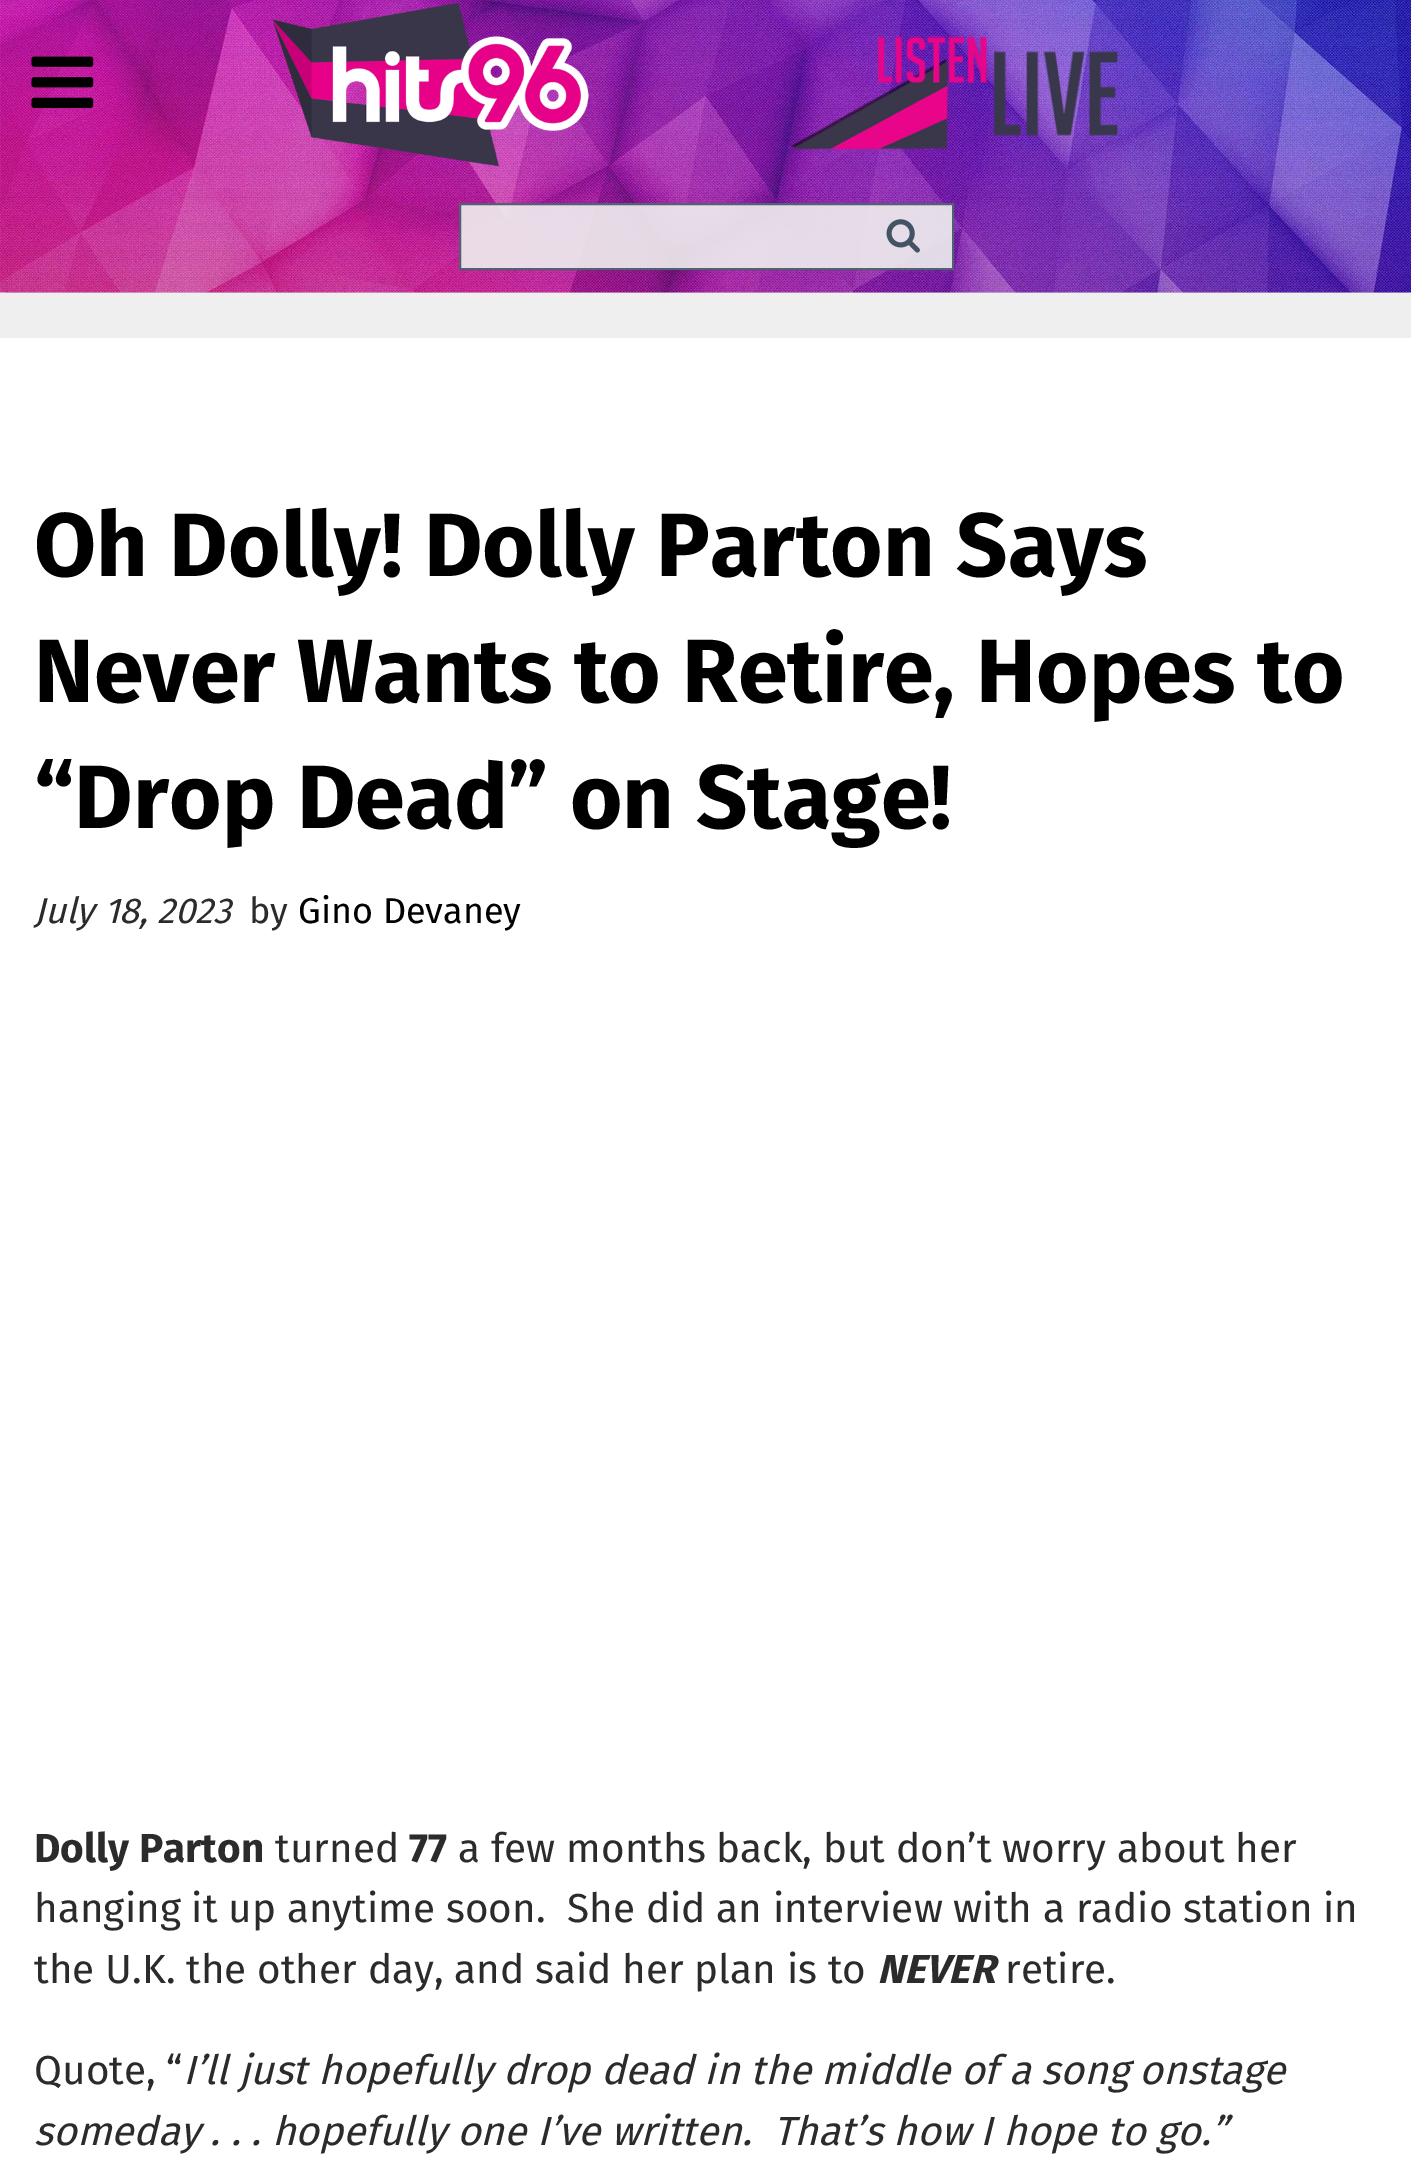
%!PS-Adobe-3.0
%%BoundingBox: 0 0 1411 2171
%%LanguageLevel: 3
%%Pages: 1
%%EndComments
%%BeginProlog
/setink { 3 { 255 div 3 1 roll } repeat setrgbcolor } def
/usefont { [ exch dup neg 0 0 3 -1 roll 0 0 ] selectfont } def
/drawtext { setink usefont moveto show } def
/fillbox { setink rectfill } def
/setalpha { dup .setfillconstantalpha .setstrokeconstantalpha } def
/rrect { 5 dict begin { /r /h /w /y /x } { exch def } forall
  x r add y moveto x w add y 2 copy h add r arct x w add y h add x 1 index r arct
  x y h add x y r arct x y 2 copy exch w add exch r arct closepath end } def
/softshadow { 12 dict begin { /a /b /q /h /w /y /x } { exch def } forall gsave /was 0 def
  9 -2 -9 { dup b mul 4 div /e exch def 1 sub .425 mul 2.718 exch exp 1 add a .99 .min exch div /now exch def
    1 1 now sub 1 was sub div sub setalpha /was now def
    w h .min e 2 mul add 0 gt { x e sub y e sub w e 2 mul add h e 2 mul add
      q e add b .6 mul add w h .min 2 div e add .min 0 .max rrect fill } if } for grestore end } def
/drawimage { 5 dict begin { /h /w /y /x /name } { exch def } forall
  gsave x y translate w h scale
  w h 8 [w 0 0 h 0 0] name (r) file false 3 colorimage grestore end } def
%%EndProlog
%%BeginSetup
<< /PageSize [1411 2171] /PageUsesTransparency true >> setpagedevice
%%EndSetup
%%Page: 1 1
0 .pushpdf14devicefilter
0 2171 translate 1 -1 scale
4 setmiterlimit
0 0 1411 2171 255 255 255 fillbox
0 0 0 setink
5 14 1404 283 0 2 0.3 softshadow
(assets/img1.rgb) 0 0 1411 293 drawimage
(assets/img2.rgb) 31 56 63 52 drawimage
(assets/img3.rgb) 272 3 317 164 drawimage
(assets/img4.rgb) 791 36 327 114 drawimage
0.9 setalpha
459 203 495 67 239 239 239 fillbox
67 83 100 setink
2 setlinewidth
460 204 493 65 rectstroke
1 setalpha
(assets/img5.rgb) 886 219 34 34 drawimage
0 293 1411 45 239 239 239 fillbox
(Oh Dolly! Dolly Parton Says) 34 576 /FiraSans-Bold 90 0 0 0 drawtext
(Never Wants to Retire, Hopes to) 34 702 /FiraSans-Bold 90 0 0 0 drawtext
(“Drop Dead” on Stage!) 34 828 /FiraSans-Bold 90 0 0 0 drawtext
(July 18, 2023) 34 923 /FiraSans-Italic 36 43 43 43 drawtext
(by) 249 923 /FiraSans-Regular 36 43 43 43 drawtext
(Gino Devaney) 298 923 /FiraSans-Regular 36 0 0 0 drawtext
(Dolly Parton) 34 1862 /FiraSans-Bold 40.5 43 43 43 drawtext
(turned) 275 1862 /FiraSans-Regular 40.5 43 43 43 drawtext
(77) 409 1862 /FiraSans-Bold 40.5 43 43 43 drawtext
(a few months back, but don’t worry about her) 458 1862 /FiraSans-Regular 40.5 43 43 43 drawtext
(hanging it up anytime soon.  She did an interview with a radio station in) 34 1922 /FiraSans-Regular 40.5 43 43 43 drawtext
(the U.K. the other day, and said her plan is to) 34 1983 /FiraSans-Regular 40.5 43 43 43 drawtext
(NEVER) 877 1983 /FiraSans-BoldItalic 40.5 43 43 43 drawtext
(retire.) 1005 1983 /FiraSans-Regular 40.5 43 43 43 drawtext
(Quote, “) 34 2084 /FiraSans-Regular 40.5 43 43 43 drawtext
(I’ll just hopefully drop dead in the middle of a song onstage) 183 2084 /FiraSans-Italic 40.5 43 43 43 drawtext
(someday . . . hopefully one I’ve written.  That’s how I hope to go.”) 34 2145 /FiraSans-Italic 40.5 43 43 43 drawtext
.poppdf14devicefilter showpage
%%EOF
